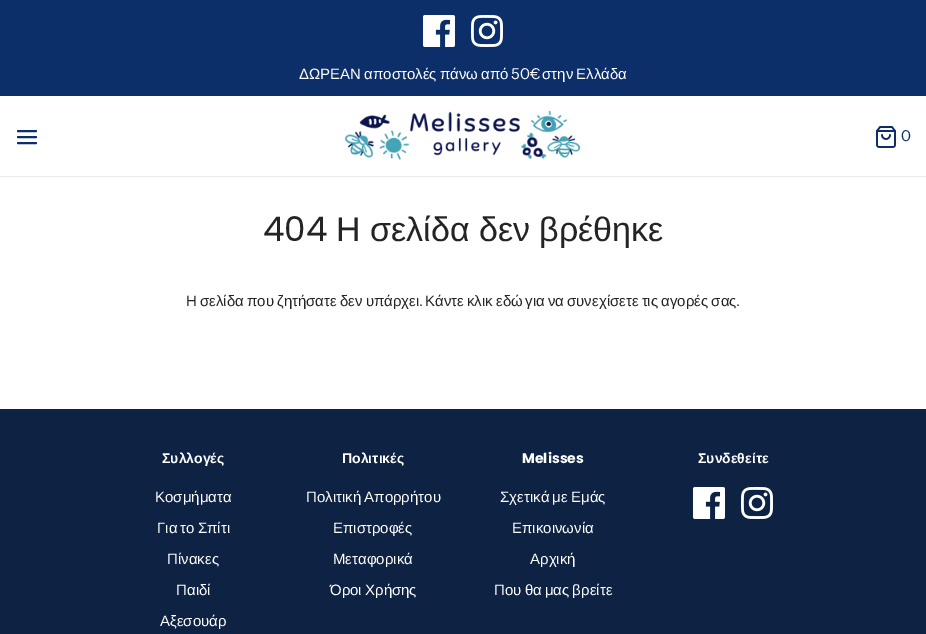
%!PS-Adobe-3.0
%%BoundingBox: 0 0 926 634
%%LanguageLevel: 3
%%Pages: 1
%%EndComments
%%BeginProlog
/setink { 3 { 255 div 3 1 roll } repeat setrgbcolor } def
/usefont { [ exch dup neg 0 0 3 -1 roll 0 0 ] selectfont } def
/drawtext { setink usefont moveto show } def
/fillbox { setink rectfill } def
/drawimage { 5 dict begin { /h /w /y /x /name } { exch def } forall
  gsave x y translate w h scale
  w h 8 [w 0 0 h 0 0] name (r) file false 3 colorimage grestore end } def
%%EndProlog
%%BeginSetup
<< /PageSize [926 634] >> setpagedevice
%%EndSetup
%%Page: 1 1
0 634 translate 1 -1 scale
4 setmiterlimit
0 0 926 634 255 255 255 fillbox
0 0 926 96 12 47 105 fillbox
(assets/img1.rgb) 423 15 32 32 drawimage
(assets/img2.rgb) 471 15 32 32 drawimage
/LiberationSans-Regular 15 usefont
255 255 255 setink
299 79 moveto -1 0 32 (ΔΩΡΕΑΝ αποστολές πάνω από) widthshow
(50€) 511 79 /InstrumentSans-Regular 15 255 255 255 drawtext
/LiberationSans-Regular 15 usefont
542 79 moveto -1 0 32 (στην Ελλάδα) widthshow
0 176 926 1 231 234 240 fillbox
12 47 105 setink
2 setlinewidth
1 setlinecap
1 setlinejoin
18 137 moveto 36 137 lineto 18 131 moveto 36 131 lineto 18 143 moveto 36 143 lineto stroke
(assets/img3.rgb) 344 111 237 49 drawimage
(assets/img4.rgb) 876 126 20 22 drawimage
(0) 901 141 /InstrumentSans-Regular 15 12 47 105 drawtext
(404) 263 241 /Poppins-Regular 34 36 36 36 drawtext
(Η σελίδα δεν βρέθηκε) 336 241 /LiberationSans-Regular 34 36 36 36 drawtext
/LiberationSans-Regular 15 usefont
186 306 moveto -1 0 32 (Η σελίδα που ζητήσατε δεν υπάρχει) widthshow
(.) 419 306 /InstrumentSans-Regular 15 36 36 36 drawtext
/LiberationSans-Regular 15 usefont
425 306 moveto -1 0 32 (Κάντε κλικ) widthshow
(εδώ) 496 306 /LiberationSans-Regular 15 36 36 36 drawtext
525 306 moveto -1 0 32 (για να συνεχίσετε τις αγορές σας) widthshow
(.) 736 306 /InstrumentSans-Regular 15 36 36 36 drawtext
0 409 926 225 14 34 67 fillbox
(Συλλογές) 162 463 /LiberationSans-Bold 14 255 255 255 drawtext
(Κοσμήματα) 155 502 /LiberationSans-Regular 15 255 255 255 drawtext
157 533 moveto -1 0 32 (Για το Σπίτι) widthshow
(Πίνακες) 167 564 /LiberationSans-Regular 15 255 255 255 drawtext
(Παιδί) 176 595 /LiberationSans-Regular 15 255 255 255 drawtext
(Αξεσουάρ) 160 626 /LiberationSans-Regular 15 255 255 255 drawtext
(Πολιτικές) 342 463 /LiberationSans-Bold 14 255 255 255 drawtext
/LiberationSans-Regular 15 usefont
306 502 moveto -1 0 32 (Πολιτική Απορρήτου) widthshow
(Επιστροφές) 333 533 /LiberationSans-Regular 15 255 255 255 drawtext
(Μεταφορικά) 333 564 /LiberationSans-Regular 15 255 255 255 drawtext
330 595 moveto -1 0 32 (Όροι Χρήσης) widthshow
(Melisses) 522 463 /Poppins-Bold 14 255 255 255 drawtext
/LiberationSans-Regular 15 usefont
500 502 moveto -1 0 32 (Σχετικά με Εμάς) widthshow
(Επικοινωνία) 512 533 /LiberationSans-Regular 15 255 255 255 drawtext
(Αρχική) 530 564 /LiberationSans-Regular 15 255 255 255 drawtext
494 595 moveto -1 0 32 (Που θα μας βρείτε) widthshow
(Συνδεθείτε) 698 463 /LiberationSans-Bold 14 255 255 255 drawtext
(assets/img5.rgb) 693 487 32 32 drawimage
(assets/img6.rgb) 741 487 32 32 drawimage
showpage
%%EOF
